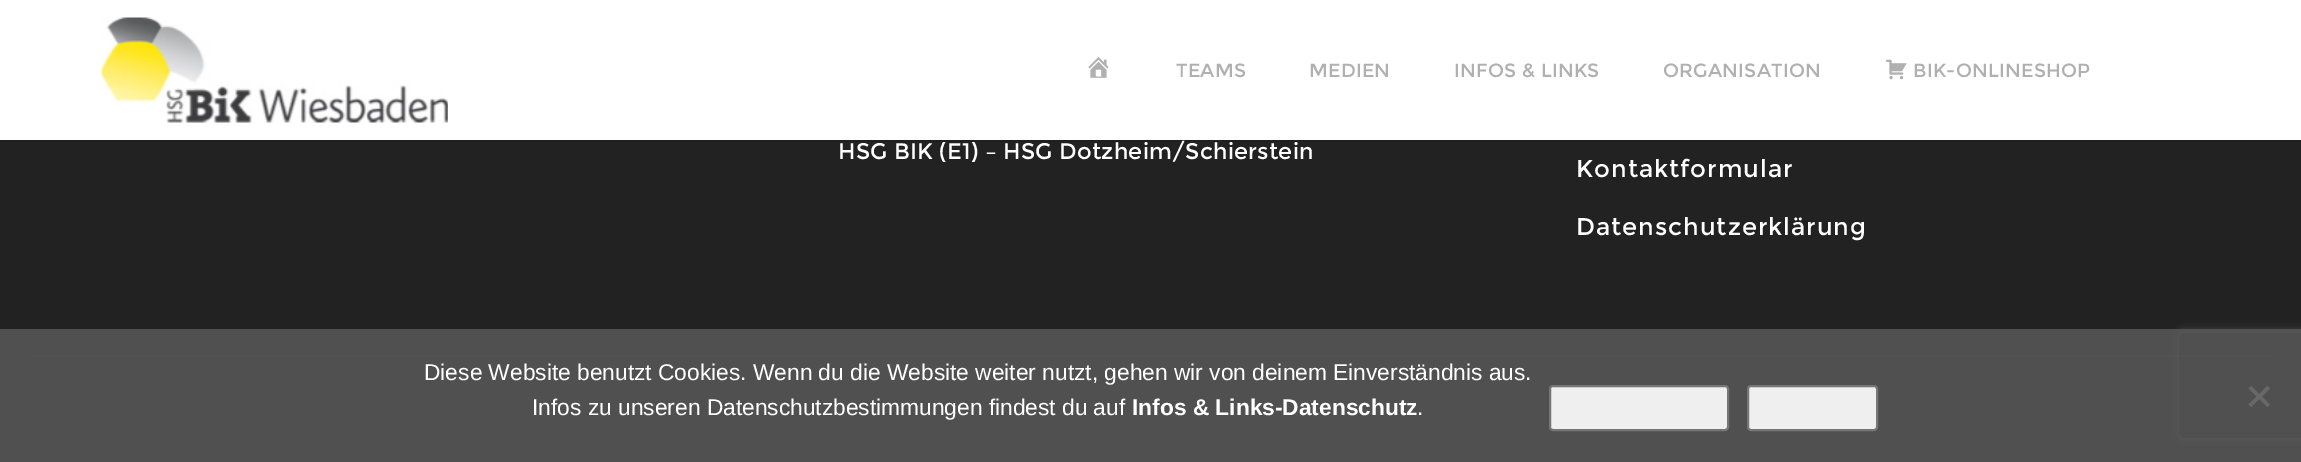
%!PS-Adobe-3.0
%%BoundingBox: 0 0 2301 462
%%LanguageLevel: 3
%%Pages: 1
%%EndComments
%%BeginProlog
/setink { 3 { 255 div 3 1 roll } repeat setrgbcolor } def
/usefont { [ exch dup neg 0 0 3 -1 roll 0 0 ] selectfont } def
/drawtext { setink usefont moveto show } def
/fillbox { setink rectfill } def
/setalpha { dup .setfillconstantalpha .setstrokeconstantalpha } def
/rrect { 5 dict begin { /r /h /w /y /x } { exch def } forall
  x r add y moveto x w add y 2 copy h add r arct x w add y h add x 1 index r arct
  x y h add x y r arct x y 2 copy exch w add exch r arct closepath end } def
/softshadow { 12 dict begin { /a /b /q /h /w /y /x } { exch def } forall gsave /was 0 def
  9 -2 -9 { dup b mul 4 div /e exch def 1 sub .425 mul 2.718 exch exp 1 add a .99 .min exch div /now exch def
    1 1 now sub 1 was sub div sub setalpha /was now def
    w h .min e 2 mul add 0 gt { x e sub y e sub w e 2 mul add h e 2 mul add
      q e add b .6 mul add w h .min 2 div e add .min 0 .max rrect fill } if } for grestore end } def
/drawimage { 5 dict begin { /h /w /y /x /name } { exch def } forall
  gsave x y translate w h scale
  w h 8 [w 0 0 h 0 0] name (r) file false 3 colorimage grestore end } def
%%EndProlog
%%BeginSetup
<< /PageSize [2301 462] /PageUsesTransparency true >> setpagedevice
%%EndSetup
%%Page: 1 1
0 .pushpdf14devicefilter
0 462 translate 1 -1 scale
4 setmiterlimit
0 0 2301 462 34 34 34 fillbox
0.08 setalpha
0 140 2301 2 0 0 0 fillbox
1 setalpha
0 0 2301 140 255 255 255 fillbox
(assets/img1.rgb) 101 17 347 106 drawimage
(assets/img2.rgb) 1088 57 21 21 drawimage
/Montserrat-Regular 19.25 usefont
176 176 176 setink
1176 77 moveto 0.2 0 (TEAMS) ashow
1309 77 moveto 0.2 0 (MEDIEN) ashow
1454 77 moveto 0.2 0 (INFOS & LINKS) ashow
1663 77 moveto 0.2 0 (ORGANISATION) ashow
(assets/img3.rgb) 1886 59 21 21 drawimage
1913 77 moveto 0.2 0 (BIK-ONLINESHOP) ashow
/Montserrat-Regular 22.75 usefont
255 255 255 setink
838 159 moveto 0.2 0 (HSG BIK \(E1\) – HSG Dotzheim/Schierstein) ashow
/Montserrat-Regular 24.5 usefont
1576 177 moveto 1 0 (Kontaktformular) ashow
1576 235 moveto 1 0 (Datenschutzerklärung) ashow
32 355 2240 2 61 61 61 fillbox
gsave
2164 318 moveto 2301 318 lineto 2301 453 lineto 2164 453 lineto closepath 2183 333 moveto 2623 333 lineto 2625 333 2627 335 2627 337 curveto 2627 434 lineto 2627 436 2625 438 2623 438 curveto 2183 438 lineto 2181 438 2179 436 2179 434 curveto 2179 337 lineto 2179 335 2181 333 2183 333 curveto closepath eoclip newpath
128 128 128 setink
2179 333 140 105 4 4.5 1 softshadow
grestore
0.9 setalpha
0 329 2301 133 85 85 85 fillbox
1 setalpha
(Diese Website benutzt Cookies. Wenn du die Website weiter nutzt, gehen wir von deinem Einverständnis aus.) 424 380 /LiberationSans-Regular 22.75 255 255 255 drawtext
(Infos zu unseren Datenschutzbestimmungen findest du auf) 532 415 /LiberationSans-Regular 22.75 255 255 255 drawtext
(Infos & Links-Datenschutz) 1132 415 /LiberationSans-Bold 22.75 255 255 255 drawtext
(.) 1417 415 /LiberationSans-Regular 22.75 255 255 255 drawtext
239 239 239 setink
1550 386 178 44 3 rrect gsave fill grestore
118 118 118 setink
2 setlinewidth
stroke
239 239 239 setink
1748 386 129 44 3 rrect gsave fill grestore
118 118 118 setink
stroke
104 104 104 setink
2267.5 386 moveto 2270 388.5 lineto 2251 407 lineto 2248.5 404.5 lineto closepath fill
2248.5 388.5 moveto 2251 386 lineto 2270 404.5 lineto 2267.5 407 lineto closepath fill
.poppdf14devicefilter showpage
%%EOF
